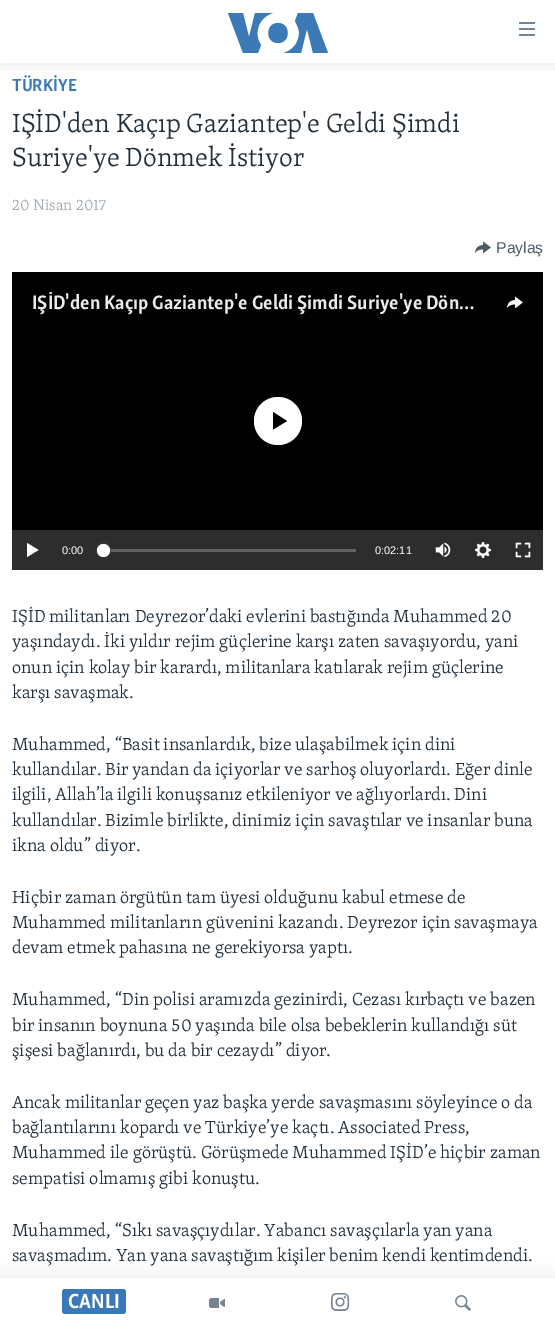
%!PS-Adobe-3.0
%%BoundingBox: 0 0 555 1328
%%LanguageLevel: 3
%%Pages: 1
%%EndComments
%%BeginProlog
/setink { 3 { 255 div 3 1 roll } repeat setrgbcolor } def
/usefont { [ exch dup neg 0 0 3 -1 roll 0 0 ] selectfont } def
/drawtext { setink usefont moveto show } def
/fillbox { setink rectfill } def
/setalpha { dup .setfillconstantalpha .setstrokeconstantalpha } def
/disc { newpath 0 360 arc closepath } def
/rrect { 5 dict begin { /r /h /w /y /x } { exch def } forall
  x r add y moveto x w add y 2 copy h add r arct x w add y h add x 1 index r arct
  x y h add x y r arct x y 2 copy exch w add exch r arct closepath end } def
/softshadow { 12 dict begin { /a /b /q /h /w /y /x } { exch def } forall gsave /was 0 def
  9 -2 -9 { dup b mul 4 div /e exch def 1 sub .425 mul 2.718 exch exp 1 add a .99 .min exch div /now exch def
    1 1 now sub 1 was sub div sub setalpha /was now def
    w h .min e 2 mul add 0 gt { x e sub y e sub w e 2 mul add h e 2 mul add
      q e add b .6 mul add w h .min 2 div e add .min 0 .max rrect fill } if } for grestore end } def
/drawimage { 5 dict begin { /h /w /y /x /name } { exch def } forall
  gsave x y translate w h scale
  w h 8 [w 0 0 h 0 0] name (r) file false 3 colorimage grestore end } def
%%EndProlog
%%BeginSetup
<< /PageSize [555 1328] /PageUsesTransparency true >> setpagedevice
%%EndSetup
%%Page: 1 1
0 .pushpdf14devicefilter
0 1328 translate 1 -1 scale
4 setmiterlimit
0 0 555 1328 255 255 255 fillbox
(TÜRKİYE) 12 91 /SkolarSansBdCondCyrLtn-Bold 18 58 121 183 drawtext
(IŞİD'den Kaçıp Gaziantep'e Geldi Şimdi) 12 132 /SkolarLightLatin-Light 27 34 47 58 drawtext
(Suriye'ye Dönmek İstiyor) 12 166 /SkolarLightLatin-Light 27 34 47 58 drawtext
(20 Nisan 2017) 12 210 /SkolarLightLatin-Light 15.75 161 170 180 drawtext
(assets/img1.rgb) 475 241 16 13 drawimage
(Paylaş) 496 253 /LiberationSans-Regular 15.75 77 90 103 drawtext
12 272 531 258 0 0 0 fillbox
gsave
32 292 457 25 rectclip
(IŞİD'den Kaçıp Gaziantep'e Geldi Şimdi Suriye'ye Dön…) 32 309 /SkolarSansBdCondCyrLtn-Bold 20 235 235 235 drawtext
grestore
(assets/img2.rgb) 507 296 16 13 drawimage
255 255 255 setink
278 421 24 disc fill
0 0 0 setink
273 429.5 moveto 287 421 lineto 273 412 lineto closepath fill
12 530 531 40 45 45 45 fillbox
255 255 255 setink
27 557 moveto 38.5 550 lineto 27 543 lineto closepath fill
(0:00) 62 554 /LiberationSans-Regular 11 255 255 255 drawtext
103 549 253 3 98 98 98 fillbox
65 65 68 setink
97 544 13 13 6.5 1.5 1 softshadow
255 255 255 setink
103.5 550.5 6.5 disc fill
(0:02:11) 375 554 /LiberationSans-Regular 11 255 255 255 drawtext
(assets/img3.rgb) 435 542 16 16 drawimage
(assets/img4.rgb) 475 542 16 16 drawimage
(assets/img5.rgb) 515 542 16 16 drawimage
(IŞİD militanları Deyrezor’daki evlerini bastığında Muhammed 20) 12 622 /SkolarLightLatin-Light 18 34 47 58 drawtext
(yaşındaydı. İki yıldır rejim güçlerine karşı zaten savaşıyordu, yani) 12 647 /SkolarLightLatin-Light 18 34 47 58 drawtext
(onun için kolay bir karardı, militanlara katılarak rejim güçlerine) 12 673 /SkolarLightLatin-Light 18 34 47 58 drawtext
(karşı savaşmak.) 12 698 /SkolarLightLatin-Light 18 34 47 58 drawtext
(Muhammed, “Basit insanlardık, bize ulaşabilmek için dini) 12 750 /SkolarLightLatin-Light 18 34 47 58 drawtext
(kullandılar. Bir yandan da içiyorlar ve sarhoş oluyorlardı. Eğer dinle) 12 775 /SkolarLightLatin-Light 18 34 47 58 drawtext
(ilgili, Allah’la ilgili konuşsanız etkileniyor ve ağlıyorlardı. Dini) 12 800 /SkolarLightLatin-Light 18 34 47 58 drawtext
(kullandılar. Bizimle birlikte, dinimiz için savaştılar ve insanlar buna) 12 826 /SkolarLightLatin-Light 18 34 47 58 drawtext
(ikna oldu” diyor.) 12 851 /SkolarLightLatin-Light 18 34 47 58 drawtext
(Hiçbir zaman örgütün tam üyesi olduğunu kabul etmese de) 12 903 /SkolarLightLatin-Light 18 34 47 58 drawtext
(Muhammed militanların güvenini kazandı. Deyrezor için savaşmaya) 12 928 /SkolarLightLatin-Light 18 34 47 58 drawtext
(devam etmek pahasına ne gerekiyorsa yaptı.) 12 953 /SkolarLightLatin-Light 18 34 47 58 drawtext
(Muhammed, “Din polisi aramızda gezinirdi, Cezası kırbaçtı ve bazen) 12 1005 /SkolarLightLatin-Light 18 34 47 58 drawtext
(bir insanın boynuna 50 yaşında bile olsa bebeklerin kullandığı süt) 12 1031 /SkolarLightLatin-Light 18 34 47 58 drawtext
(şişesi bağlanırdı, bu da bir cezaydı” diyor.) 12 1056 /SkolarLightLatin-Light 18 34 47 58 drawtext
(Ancak militanlar geçen yaz başka yerde savaşmasını söyleyince o da) 12 1108 /SkolarLightLatin-Light 18 34 47 58 drawtext
(bağlantılarını kopardı ve Türkiye’ye kaçtı. Associated Press,) 12 1133 /SkolarLightLatin-Light 18 34 47 58 drawtext
(Muhammed ile görüştü. Görüşmede Muhammed IŞİD’e hiçbir zaman) 12 1158 /SkolarLightLatin-Light 18 34 47 58 drawtext
(sempatisi olmamış gibi konuştu.) 12 1184 /SkolarLightLatin-Light 18 34 47 58 drawtext
(Muhammed, “Sıkı savaşçıydılar. Yabancı savaşçılarla yan yana) 12 1236 /SkolarLightLatin-Light 18 34 47 58 drawtext
(savaşmadım. Yan yana savaştığım kişiler benim kendi kentimdendi.) 12 1261 /SkolarLightLatin-Light 18 34 47 58 drawtext
gsave
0 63 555 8 rectclip
0 0 0 setink
0 0 555 63 0 10 0.1 softshadow
grestore
59 121 183 setink
261 45 moveto 258 53 lineto 243 53 lineto 228 13 lineto 243 13 lineto 249 37 lineto 255 13 lineto 273 13 lineto 259 17 253 33 261 45 curveto closepath 278 23 moveto 265 23 265 43 278 43 curveto 291 43 291 23 278 23 curveto closepath 299 33 moveto 299 43 292 51 283 53 curveto 301 53 lineto 307 29 lineto 313 53 lineto 328 53 lineto 313 13 lineto 298 13 lineto 295 21 lineto 297 25 299 29 299 33 curveto closepath fill
(assets/img6.rgb) 519 22 16 14 drawimage
0 0 0 setink
0 1278 555 50 0 10 0.1 softshadow
0 1278 555 50 255 255 255 fillbox
58 121 183 setink
62 1289 64 25 3 rrect fill
(CANLI) 68 1308 /SkolarSansBdCondCyrLtn-Bold 21 255 255 255 drawtext
(assets/img7.rgb) 209 1298 16 10 drawimage
(assets/img8.rgb) 331 1293 19 18 drawimage
(assets/img9.rgb) 455 1295 16 16 drawimage
.poppdf14devicefilter showpage
%%EOF
